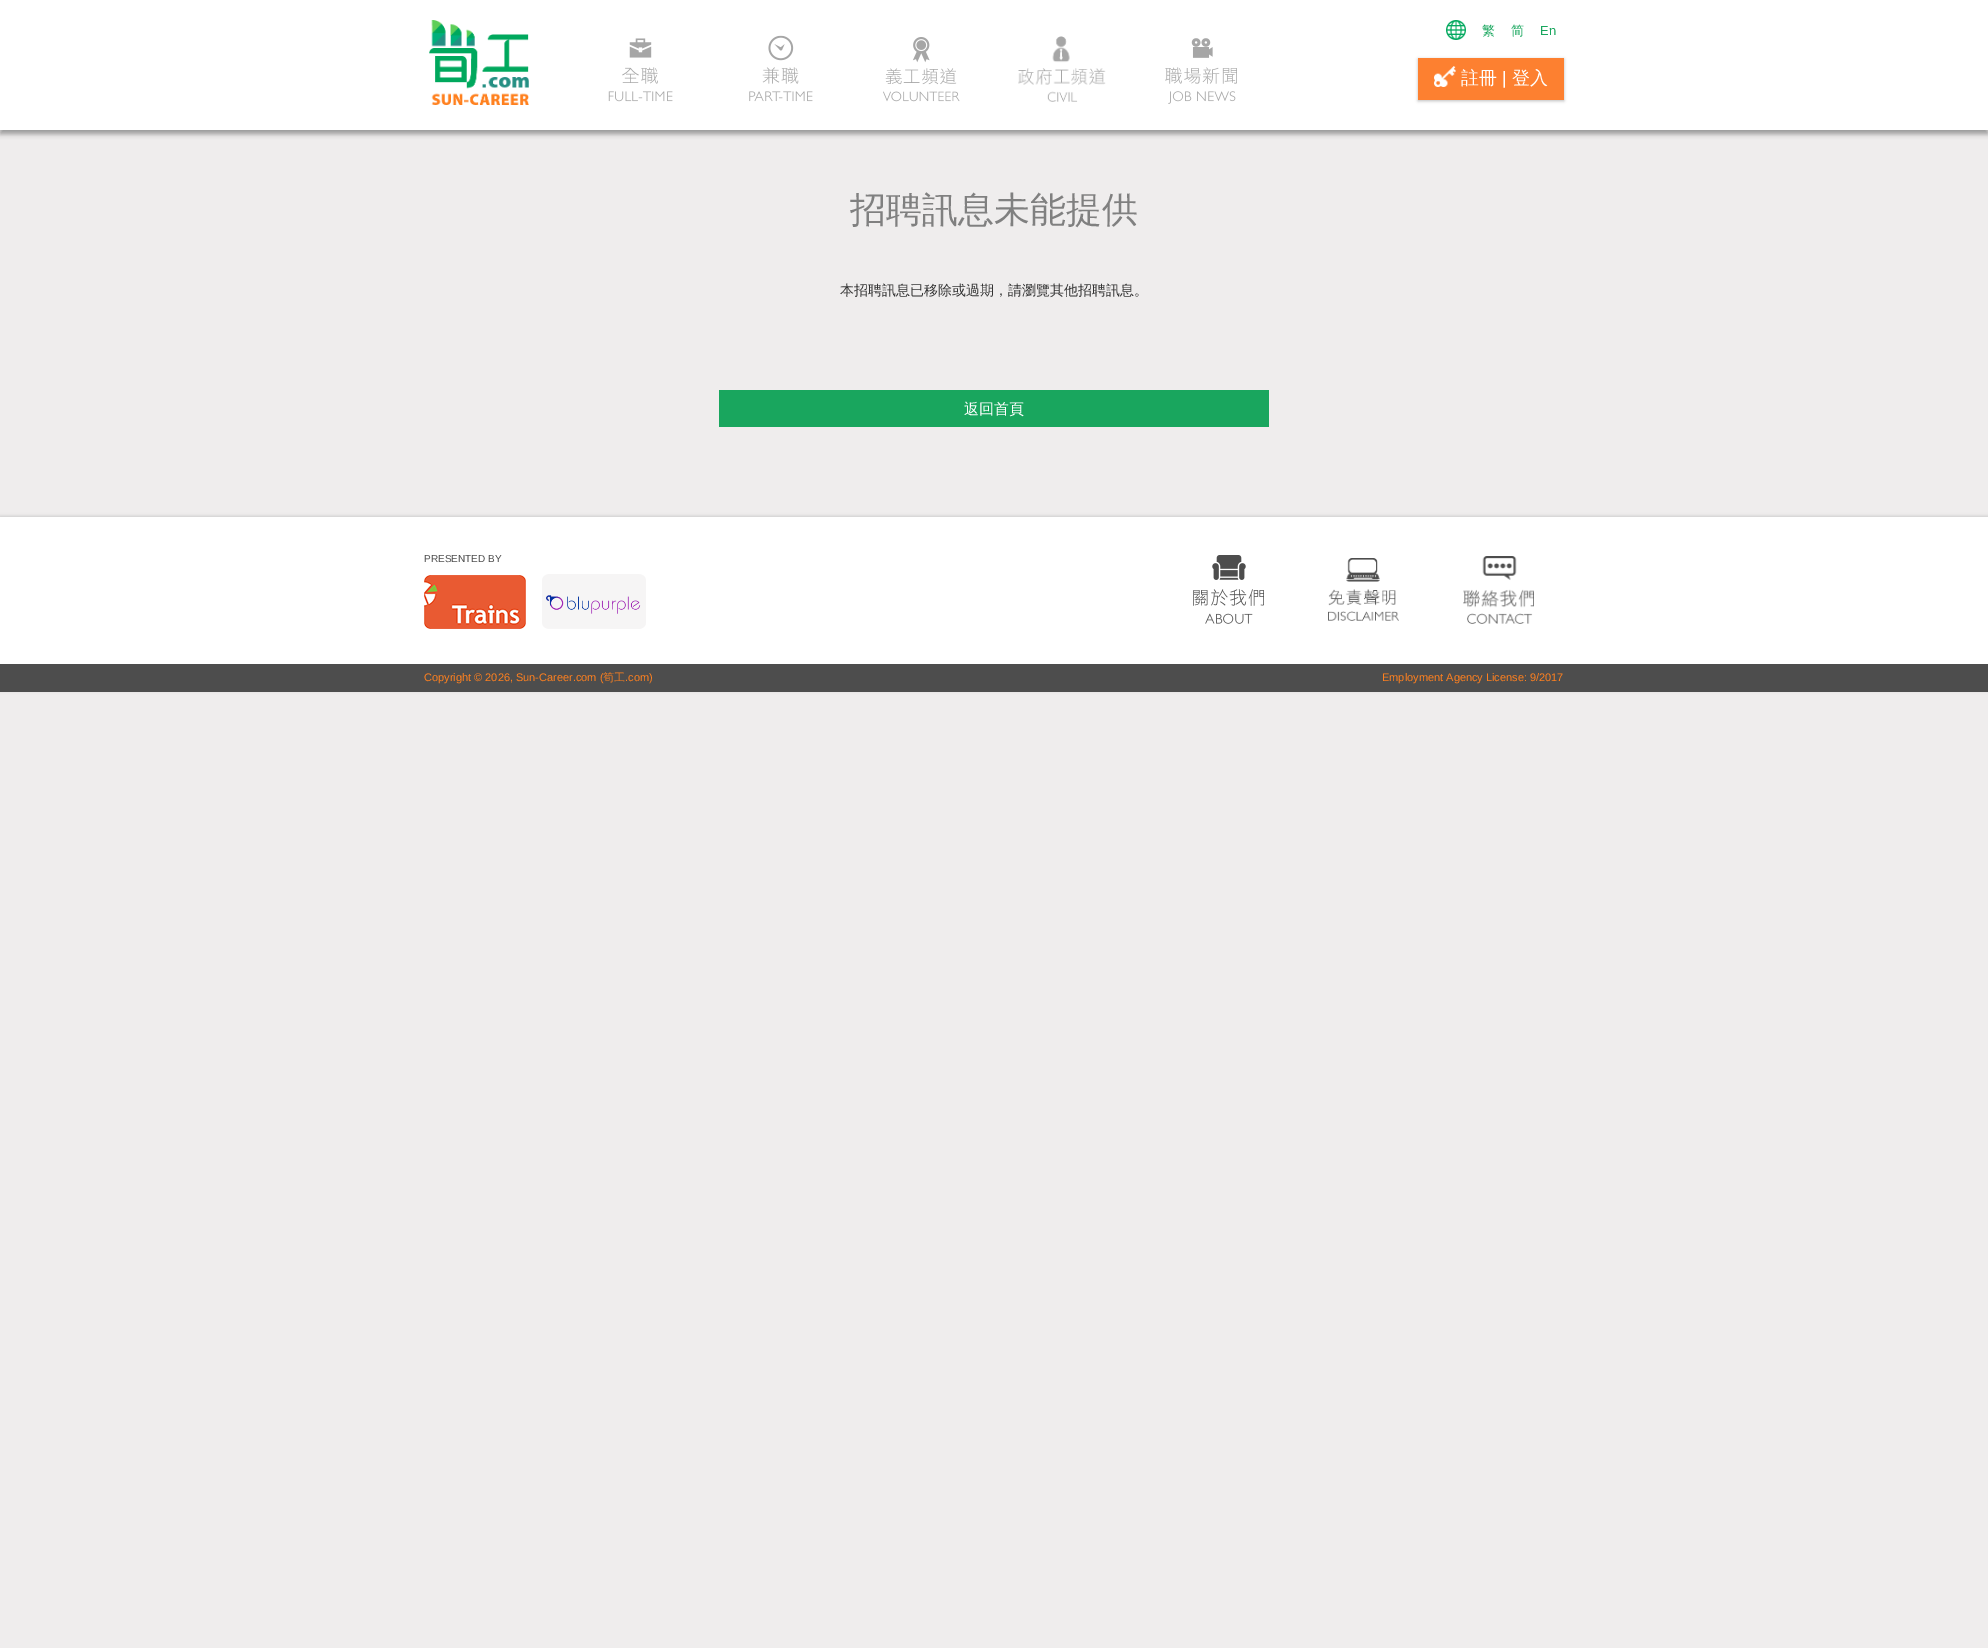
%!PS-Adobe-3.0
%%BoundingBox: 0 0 1988 1648
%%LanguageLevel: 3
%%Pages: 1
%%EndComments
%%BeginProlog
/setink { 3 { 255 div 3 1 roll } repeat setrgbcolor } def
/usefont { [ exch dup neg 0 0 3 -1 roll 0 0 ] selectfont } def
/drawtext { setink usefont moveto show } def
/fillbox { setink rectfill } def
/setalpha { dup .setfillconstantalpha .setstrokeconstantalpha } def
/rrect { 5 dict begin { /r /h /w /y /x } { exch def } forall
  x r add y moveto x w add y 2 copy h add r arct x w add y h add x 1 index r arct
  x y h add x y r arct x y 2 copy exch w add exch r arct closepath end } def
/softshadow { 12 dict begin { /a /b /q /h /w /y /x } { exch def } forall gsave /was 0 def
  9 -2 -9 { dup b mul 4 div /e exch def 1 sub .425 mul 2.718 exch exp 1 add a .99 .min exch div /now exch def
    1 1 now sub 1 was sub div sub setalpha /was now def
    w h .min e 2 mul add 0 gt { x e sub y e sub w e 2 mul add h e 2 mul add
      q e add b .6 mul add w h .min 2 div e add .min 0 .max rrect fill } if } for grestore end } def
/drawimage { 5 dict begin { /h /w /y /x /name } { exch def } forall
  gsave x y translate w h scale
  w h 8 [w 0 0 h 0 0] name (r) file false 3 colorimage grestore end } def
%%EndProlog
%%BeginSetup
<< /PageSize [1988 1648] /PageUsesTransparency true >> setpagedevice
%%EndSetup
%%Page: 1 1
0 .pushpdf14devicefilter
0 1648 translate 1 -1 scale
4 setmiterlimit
0 0 1988 1648 239 237 237 fillbox
153 153 153 setink
0 4 1988 130 0 2.5 1 softshadow
0 0 1988 130 255 255 255 fillbox
(assets/img1.rgb) 429 20 100 85 drawimage
(assets/img2.rgb) 608 38 65 64 drawimage
(assets/img3.rgb) 749 35 64 67 drawimage
(assets/img4.rgb) 883 37 77 65 drawimage
(assets/img5.rgb) 1018 36 88 66 drawimage
(assets/img6.rgb) 1165 38 72 66 drawimage
(assets/img7.rgb) 1446 20 20 20 drawimage
(繁) 1482 35 /WenQuanYiZenHei-Medium 13 25 166 94 drawtext
(简) 1511 35 /WenQuanYiZenHei-Medium 13 25 166 94 drawtext
(En) 1540 35 /LiberationSans-Regular 13 25 166 94 drawtext
189 189 189 setink
1418 59 146 42 0 1.5 1 softshadow
1418 58 146 42 253 128 48 fillbox
(assets/img8.rgb) 1434 66 22 21 drawimage
(註冊) 1461 84 /WenQuanYiZenHei-Medium 18 255 255 255 drawtext
(|) 1502 84 /LiberationSans-Regular 18 255 255 255 drawtext
(登入) 1512 84 /WenQuanYiZenHei-Medium 18 255 255 255 drawtext
(招聘訊息未能提供) 850 222 /WenQuanYiZenHei-Medium 36 128 128 128 drawtext
(本招聘訊息已移除或過期，請瀏覽其他招聘訊息。) 840 295 /WenQuanYiZenHei-Medium 14 51 51 51 drawtext
719 390 550 37 25 166 94 fillbox
(返回首頁) 964 414 /WenQuanYiZenHei-Medium 15 255 255 255 drawtext
204 204 204 setink
0 516 1988 175 0 1.5 1 softshadow
0 517 1988 147 255 255 255 fillbox
(PRESENTED BY) 424 562 /LiberationSans-Regular 10 77 77 77 drawtext
(assets/img9.rgb) 424 575 102 54 drawimage
(assets/img10.rgb) 542 574 104 55 drawimage
(assets/img11.rgb) 1193 555 71 69 drawimage
(assets/img12.rgb) 1328 558 71 63 drawimage
(assets/img13.rgb) 1463 556 71 68 drawimage
0 664 1988 28 77 77 77 fillbox
(Copyright © 2026, Sun-Career.com \() 424 681 /LiberationSans-Regular 11 255 128 30 drawtext
(筍工) 603 681 /WenQuanYiZenHei-Medium 11 255 128 30 drawtext
(.com\)) 625 681 /LiberationSans-Regular 11 255 128 30 drawtext
(Employment Agency License: 9/2017) 1382 681 /LiberationSans-Regular 11 255 128 30 drawtext
.poppdf14devicefilter showpage
%%EOF
